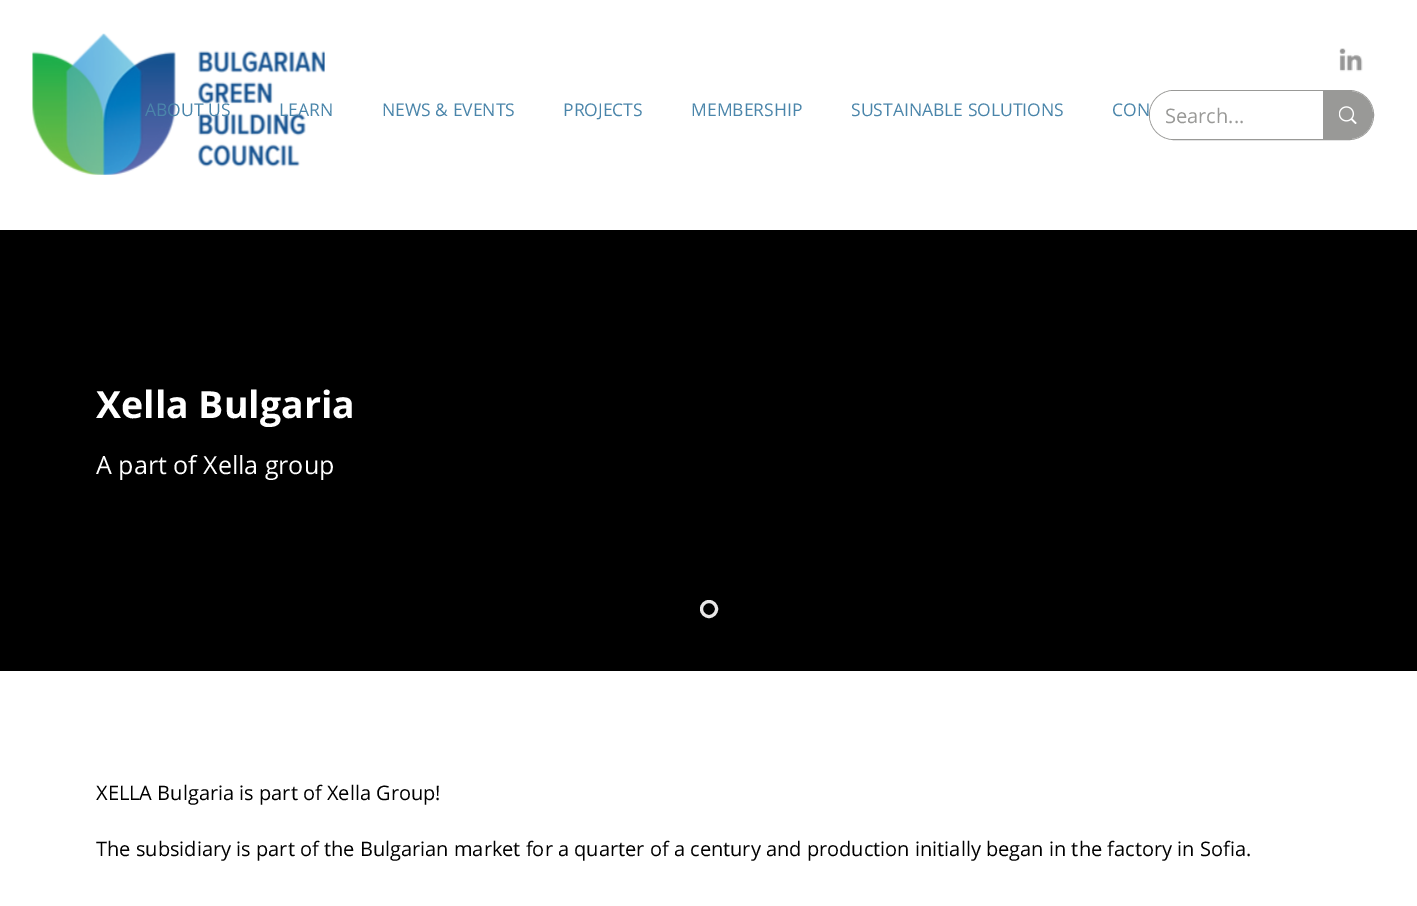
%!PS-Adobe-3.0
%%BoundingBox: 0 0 1417 906
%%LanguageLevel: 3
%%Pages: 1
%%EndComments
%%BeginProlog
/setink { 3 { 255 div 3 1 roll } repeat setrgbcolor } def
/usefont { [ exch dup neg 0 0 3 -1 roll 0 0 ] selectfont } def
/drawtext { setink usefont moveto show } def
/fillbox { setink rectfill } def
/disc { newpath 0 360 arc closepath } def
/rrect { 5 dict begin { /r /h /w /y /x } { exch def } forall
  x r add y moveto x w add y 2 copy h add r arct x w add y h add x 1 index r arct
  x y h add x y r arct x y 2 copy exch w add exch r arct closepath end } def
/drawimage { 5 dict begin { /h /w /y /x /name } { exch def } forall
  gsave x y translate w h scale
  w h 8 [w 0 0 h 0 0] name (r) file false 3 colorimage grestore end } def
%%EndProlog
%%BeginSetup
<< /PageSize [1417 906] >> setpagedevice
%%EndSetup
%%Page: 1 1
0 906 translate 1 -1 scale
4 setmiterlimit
0 0 1417 906 255 255 255 fillbox
(assets/img1.rgb) 32 33 293 142 drawimage
(ABOUT US) 145 116 /OpenSans-Regular 17.5 74 133 170 drawtext
(LEARN) 279 116 /OpenSans-Regular 17.5 74 133 170 drawtext
(NEWS & EVENTS) 382 116 /OpenSans-Regular 17.5 74 133 170 drawtext
(PROJECTS) 563 116 /OpenSans-Regular 17.5 74 133 170 drawtext
(MEMBERSHIP) 691 116 /OpenSans-Regular 17.5 74 133 170 drawtext
(SUSTAINABLE SOLUTIONS) 851 116 /OpenSans-Regular 17.5 74 133 170 drawtext
(CON) 1112 116 /OpenSans-Regular 17.5 74 133 170 drawtext
(assets/img2.rgb) 1339 48 24 24 drawimage
153 153 151 setink
1149.5 90.5 224 49 24.5 rrect stroke
255 255 255 setink
1150 91 223 48 24 rrect fill
(Search...) 1165 123 /OpenSans-Regular 20 153 153 151 drawtext
1323 91 moveto 1349 91 lineto 1362.5 91 1373 101.5 1373 115 curveto 1373 128.5 1362.5 139 1349 139 curveto 1323 139 lineto closepath fill
(assets/img3.rgb) 1339 106 18 18 drawimage
0 230 1417 441 0 0 0 fillbox
(Xella Bulgaria) 96 418 /OpenSans-Bold 37.5 255 255 255 drawtext
(A part of Xella group) 96 474 /OpenSans-Regular 25 255 255 255 drawtext
232 230 230 setink
3 setlinewidth
709 609 7.5 disc stroke
(XELLA Bulgaria is part of Xella Group!) 96 800 /OpenSans-Regular 20 0 0 0 drawtext
(The subsidiary is part of the Bulgarian market for a quarter of a century and production initially began in the factory in Sofia.) 96 856 /OpenSans-Regular 20 0 0 0 drawtext
showpage
%%EOF
